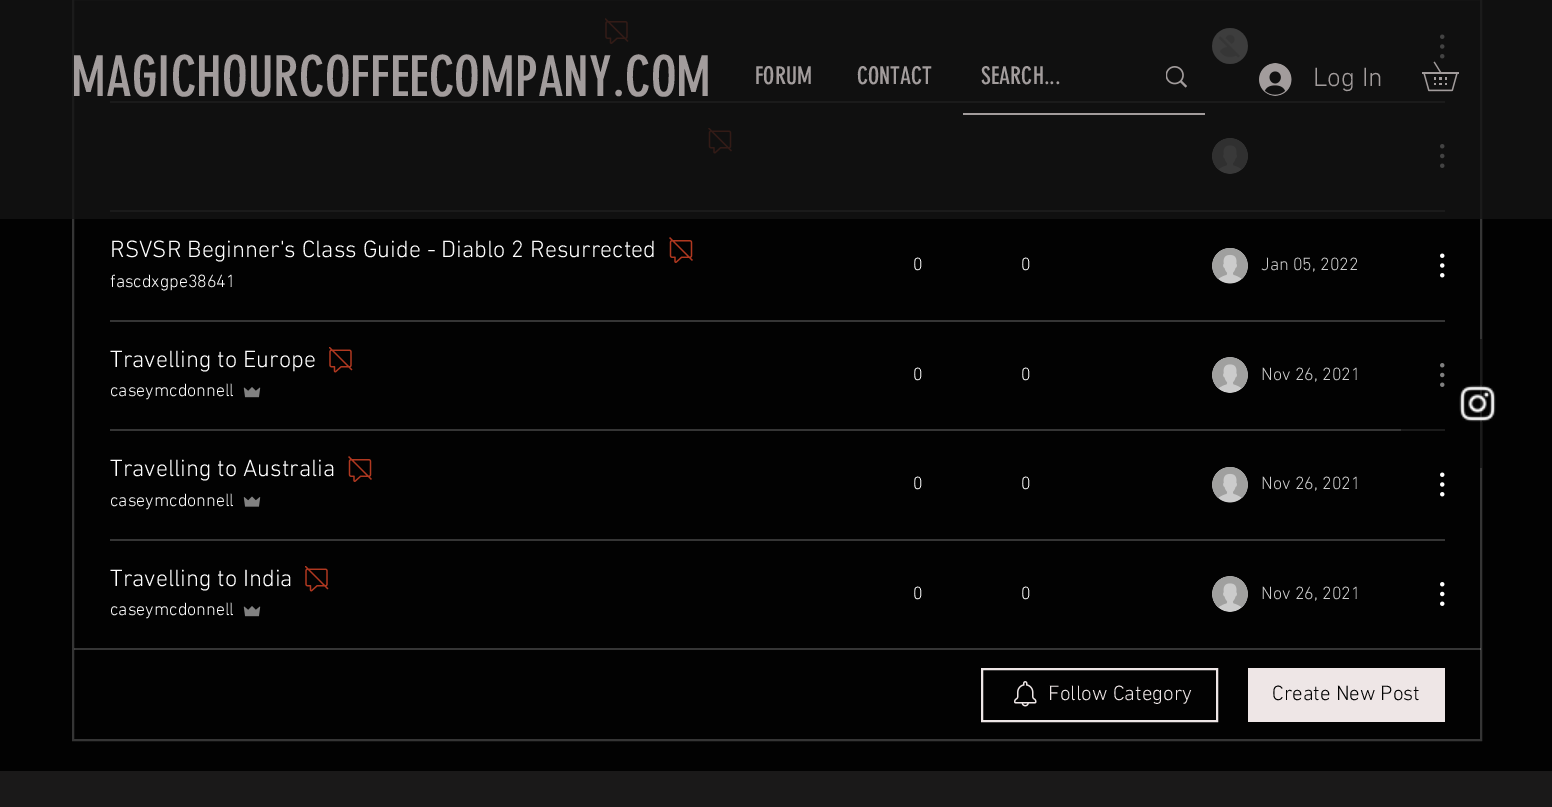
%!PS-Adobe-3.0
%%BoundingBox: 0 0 1552 807
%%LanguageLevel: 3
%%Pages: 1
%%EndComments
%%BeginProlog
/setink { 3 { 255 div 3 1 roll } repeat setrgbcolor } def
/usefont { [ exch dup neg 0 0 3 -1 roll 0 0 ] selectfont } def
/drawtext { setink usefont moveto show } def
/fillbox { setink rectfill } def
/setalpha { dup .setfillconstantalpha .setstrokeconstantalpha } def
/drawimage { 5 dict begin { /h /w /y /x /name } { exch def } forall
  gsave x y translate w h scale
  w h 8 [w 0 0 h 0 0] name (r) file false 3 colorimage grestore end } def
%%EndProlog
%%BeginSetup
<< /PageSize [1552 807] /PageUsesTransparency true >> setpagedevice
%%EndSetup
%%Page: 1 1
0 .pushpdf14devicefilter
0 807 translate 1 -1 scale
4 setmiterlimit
0 0 1552 807 2 2 2 fillbox
53 53 53 setink
2 setlinewidth
73 -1 1408 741 rectstroke
(assets/img4.rgb) 605 18 24 26 drawimage
(assets/img5.rgb) 1212 28 36 36 drawimage
(assets/img6.rgb) 1440 34 5 25 drawimage
110 101 1335 2 53 53 53 fillbox
(assets/img7.rgb) 708 128 24 26 drawimage
(assets/img8.rgb) 1212 138 36 36 drawimage
(assets/img9.rgb) 1440 144 5 24 drawimage
110 210 1335 2 53 53 53 fillbox
0.8 setalpha
0 0 1552 219 20 20 20 fillbox
1 setalpha
(MAGICHOURCOFFEECOMPANY.COM) 71 96 /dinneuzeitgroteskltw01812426-Regular 55.5 162 156 156 drawtext
(FORUM) 755 84 /dinneuzeitgroteskltw01812426-Regular 24 162 156 156 drawtext
(CONTACT) 857 84 /dinneuzeitgroteskltw01812426-Regular 24 162 156 156 drawtext
963 113 242 2 162 156 156 fillbox
(SEARCH...) 981 84 /dinneuzeitgroteskltw01812426-Regular 24 162 156 156 drawtext
(assets/img1.rgb) 1166 66 21 22 drawimage
(assets/img2.rgb) 1259 63 33 33 drawimage
(Log In) 1313 86 /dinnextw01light-Light 27 162 156 156 drawtext
(assets/img3.rgb) 1422 61 37 31 drawimage
(RSVSR Beginner's Class Guide - Diablo 2 Resurrected) 110 257 /dinnextw01light-Light 24 255 255 255 drawtext
(assets/img10.rgb) 669 237 24 26 drawimage
(fascdxgpe38641) 110 287 /dinnextw01light-Light 18 255 255 255 drawtext
(0) 913 270 /dinnextw01light-Light 18 255 255 255 drawtext
(0) 1021 270 /dinnextw01light-Light 18 255 255 255 drawtext
(assets/img11.rgb) 1212 248 36 36 drawimage
(Jan 05, 2022) 1261 270 /dinnextw01light-Light 18 204 204 204 drawtext
(assets/img6.rgb) 1440 253 5 25 drawimage
110 320 1335 2 53 53 53 fillbox
(Travelling to Europe) 110 367 /dinnextw01light-Light 24 255 255 255 drawtext
(assets/img12.rgb) 329 347 24 26 drawimage
(caseymcdonnell) 110 396 /dinnextw01light-Light 18 255 255 255 drawtext
(assets/img13.rgb) 243 387 18 11 drawimage
(0) 913 380 /dinnextw01light-Light 18 255 255 255 drawtext
(0) 1021 380 /dinnextw01light-Light 18 255 255 255 drawtext
(assets/img8.rgb) 1212 357 36 36 drawimage
(Nov 26, 2021) 1261 380 /dinnextw01light-Light 18 204 204 204 drawtext
(assets/img9.rgb) 1440 363 5 24 drawimage
110 429 1335 2 53 53 53 fillbox
(Travelling to Australia) 110 476 /dinnextw01light-Light 24 255 255 255 drawtext
(assets/img10.rgb) 348 456 24 26 drawimage
(caseymcdonnell) 110 506 /dinnextw01light-Light 18 255 255 255 drawtext
(assets/img14.rgb) 243 496 18 11 drawimage
(0) 913 489 /dinnextw01light-Light 18 255 255 255 drawtext
(0) 1021 489 /dinnextw01light-Light 18 255 255 255 drawtext
(assets/img11.rgb) 1212 467 36 36 drawimage
(Nov 26, 2021) 1261 489 /dinnextw01light-Light 18 204 204 204 drawtext
(assets/img6.rgb) 1440 472 5 25 drawimage
110 539 1335 2 53 53 53 fillbox
(Travelling to India) 110 586 /dinnextw01light-Light 24 255 255 255 drawtext
(assets/img12.rgb) 305 566 24 26 drawimage
(caseymcdonnell) 110 615 /dinnextw01light-Light 18 255 255 255 drawtext
(assets/img13.rgb) 243 606 18 11 drawimage
(0) 913 599 /dinnextw01light-Light 18 255 255 255 drawtext
(0) 1021 599 /dinnextw01light-Light 18 255 255 255 drawtext
(assets/img8.rgb) 1212 576 36 36 drawimage
(Nov 26, 2021) 1261 599 /dinnextw01light-Light 18 204 204 204 drawtext
(assets/img9.rgb) 1440 582 5 24 drawimage
0.2 setalpha
74 648 1407 2 255 255 255 fillbox
1 setalpha
238 230 230 setink
982 669 235 52 rectstroke
(assets/img15.rgb) 1014 681 23 26 drawimage
(Follow Category) 1048 700 /dinnextw01light-Light 21 238 230 230 drawtext
1248 668 197 54 238 230 230 fillbox
(Create New Post) 1272 700 /dinnextw01light-Light 21 2 2 2 drawtext
0.5 setalpha
1401 339 81 129 2 2 2 fillbox
1 setalpha
(assets/img16.rgb) 1459 385 37 37 drawimage
0 771 1552 36 26 25 25 fillbox
.poppdf14devicefilter showpage
%%EOF
